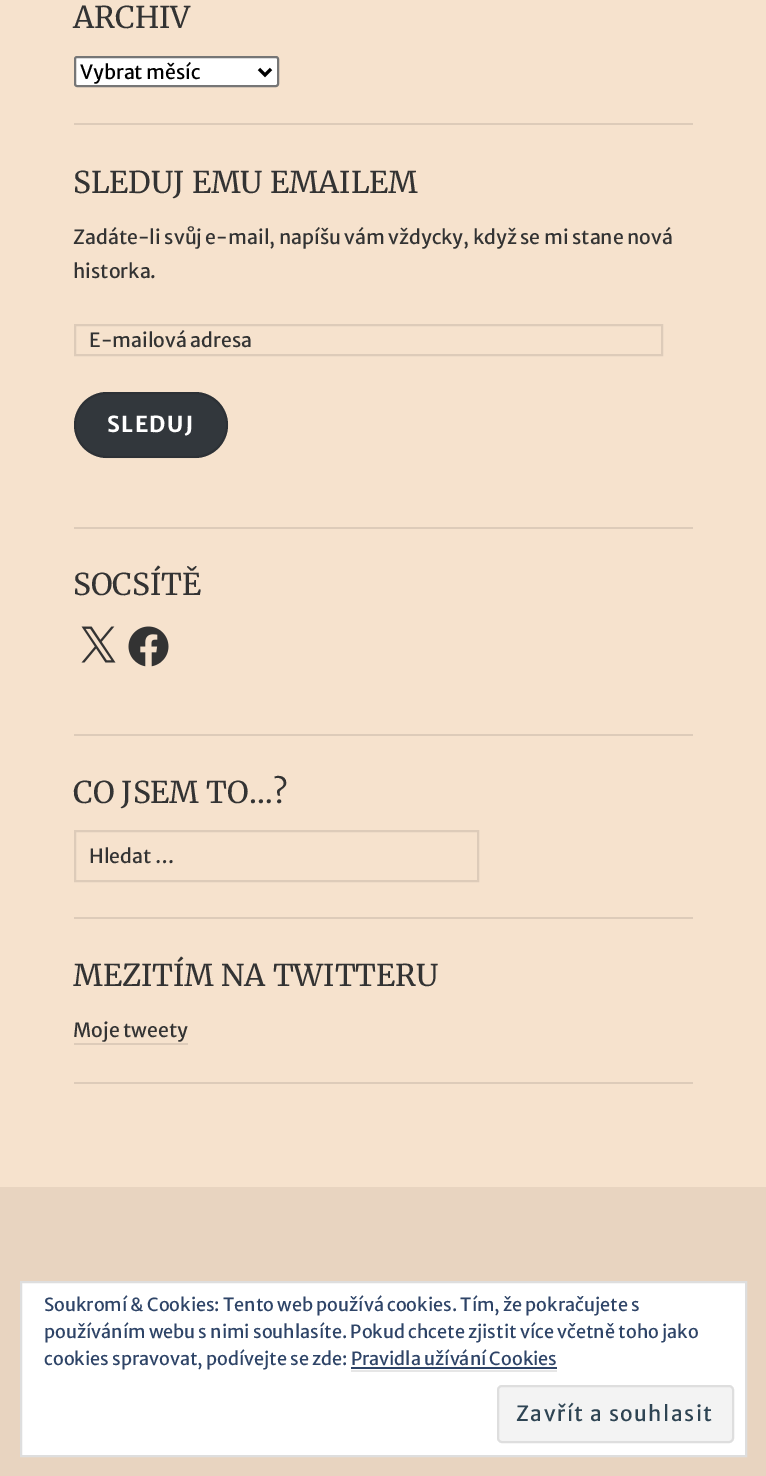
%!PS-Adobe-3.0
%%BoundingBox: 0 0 766 1476
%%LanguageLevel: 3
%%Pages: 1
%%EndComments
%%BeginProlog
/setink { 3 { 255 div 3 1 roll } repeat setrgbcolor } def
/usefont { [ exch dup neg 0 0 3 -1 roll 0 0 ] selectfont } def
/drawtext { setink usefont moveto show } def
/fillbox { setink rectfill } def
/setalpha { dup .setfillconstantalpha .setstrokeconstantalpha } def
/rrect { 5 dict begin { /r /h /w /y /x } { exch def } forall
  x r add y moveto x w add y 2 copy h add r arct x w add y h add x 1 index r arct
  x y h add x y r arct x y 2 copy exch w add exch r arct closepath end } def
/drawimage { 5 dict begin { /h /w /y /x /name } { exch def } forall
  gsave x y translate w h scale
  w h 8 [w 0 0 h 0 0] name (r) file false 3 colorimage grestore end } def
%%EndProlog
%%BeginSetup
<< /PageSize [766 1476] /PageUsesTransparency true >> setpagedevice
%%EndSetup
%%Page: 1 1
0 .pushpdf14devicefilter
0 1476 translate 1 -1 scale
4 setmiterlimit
0 0 766 1476 246 226 205 fillbox
74 123 619 2 221 203 185 fillbox
(ARCHIV) 73 28 /Merriweather-Light 30 51 51 51 drawtext
255 255 255 setink
75 57 203 29 2 rrect gsave fill grestore
118 118 118 setink
2 setlinewidth
stroke
0 0 0 setink
3 setlinewidth
259 69 moveto 265 75 lineto 271 69 lineto stroke
(Vybrat měsíc) 80 79 /MerriweatherSans-Regular 19.5 0 0 0 drawtext
74 527 619 2 221 203 185 fillbox
(SLEDUJ EMU EMAILEM) 73 193 /Merriweather-Light 30 51 51 51 drawtext
(Zadáte-li svůj e-mail, napíšu vám vždycky, když se mi stane nová) 73 244 /MerriweatherSans-Regular 19.5 51 51 51 drawtext
(historka.) 73 278 /MerriweatherSans-Regular 19.5 51 51 51 drawtext
221 203 185 setink
2 setlinewidth
75 325 587 30 rectstroke
(E-mailová adresa) 89 347 /MerriweatherSans-Regular 19.5 51 51 51 drawtext
50 55 60 setink
74 392 154 66 33 rrect fill
0.1 setalpha
0 0 0 setink
75 393 152 64 32 rrect stroke
/MerriweatherSans-Bold 22 usefont
1 setalpha
255 255 255 setink
107 432 moveto 1.5 0 (SLEDUJ) ashow
74 734 619 2 221 203 185 fillbox
(SOCSÍTĚ) 73 595 /Merriweather-Light 30 51 51 51 drawtext
(assets/img1.rgb) 81 626 35 37 drawimage
(assets/img2.rgb) 128 626 41 41 drawimage
74 917 619 2 221 203 185 fillbox
(CO JSEM TO…?) 73 803 /Merriweather-Light 30 51 51 51 drawtext
221 203 185 setink
75 831 403 50 rectstroke
(Hledat …) 89 863 /MerriweatherSans-Regular 19.5 51 51 51 drawtext
74 1082 619 2 221 203 185 fillbox
(MEZITÍM NA TWITTERU) 73 986 /Merriweather-Light 30 51 51 51 drawtext
(Moje tweety) 73 1037 /MerriweatherSans-Regular 19.5 51 51 51 drawtext
74 1043 114 2 221 203 185 fillbox
0 1187 766 289 232 212 192 fillbox
255 255 255 setink
21 1282 moveto 746 1282 lineto 746 1456 lineto 21 1456 lineto closepath gsave fill grestore
222 222 222 setink
stroke
(Soukromí & Cookies: Tento web používá cookies. Tím, že pokračujete s) 44 1311 /MerriweatherSans-Regular 18 46 68 103 drawtext
(používáním webu s nimi souhlasíte. Pokud chcete zjistit více včetně toho jako) 44 1338 /MerriweatherSans-Regular 18 46 68 103 drawtext
(cookies spravovat, podívejte se zde: Pravidla užívání Cookies) 44 1365 /MerriweatherSans-Regular 18 46 68 103 drawtext
351 1367 206 2 46 68 103 fillbox
351 1370 206 2 230 230 230 fillbox
243 243 243 setink
498 1386 235 56 4 rrect gsave fill grestore
222 222 222 setink
stroke
/MerriweatherSans-Regular 21 usefont
46 68 83 setink
516 1421 moveto 1.5 0 (Zavřít a souhlasit) ashow
.poppdf14devicefilter showpage
%%EOF
